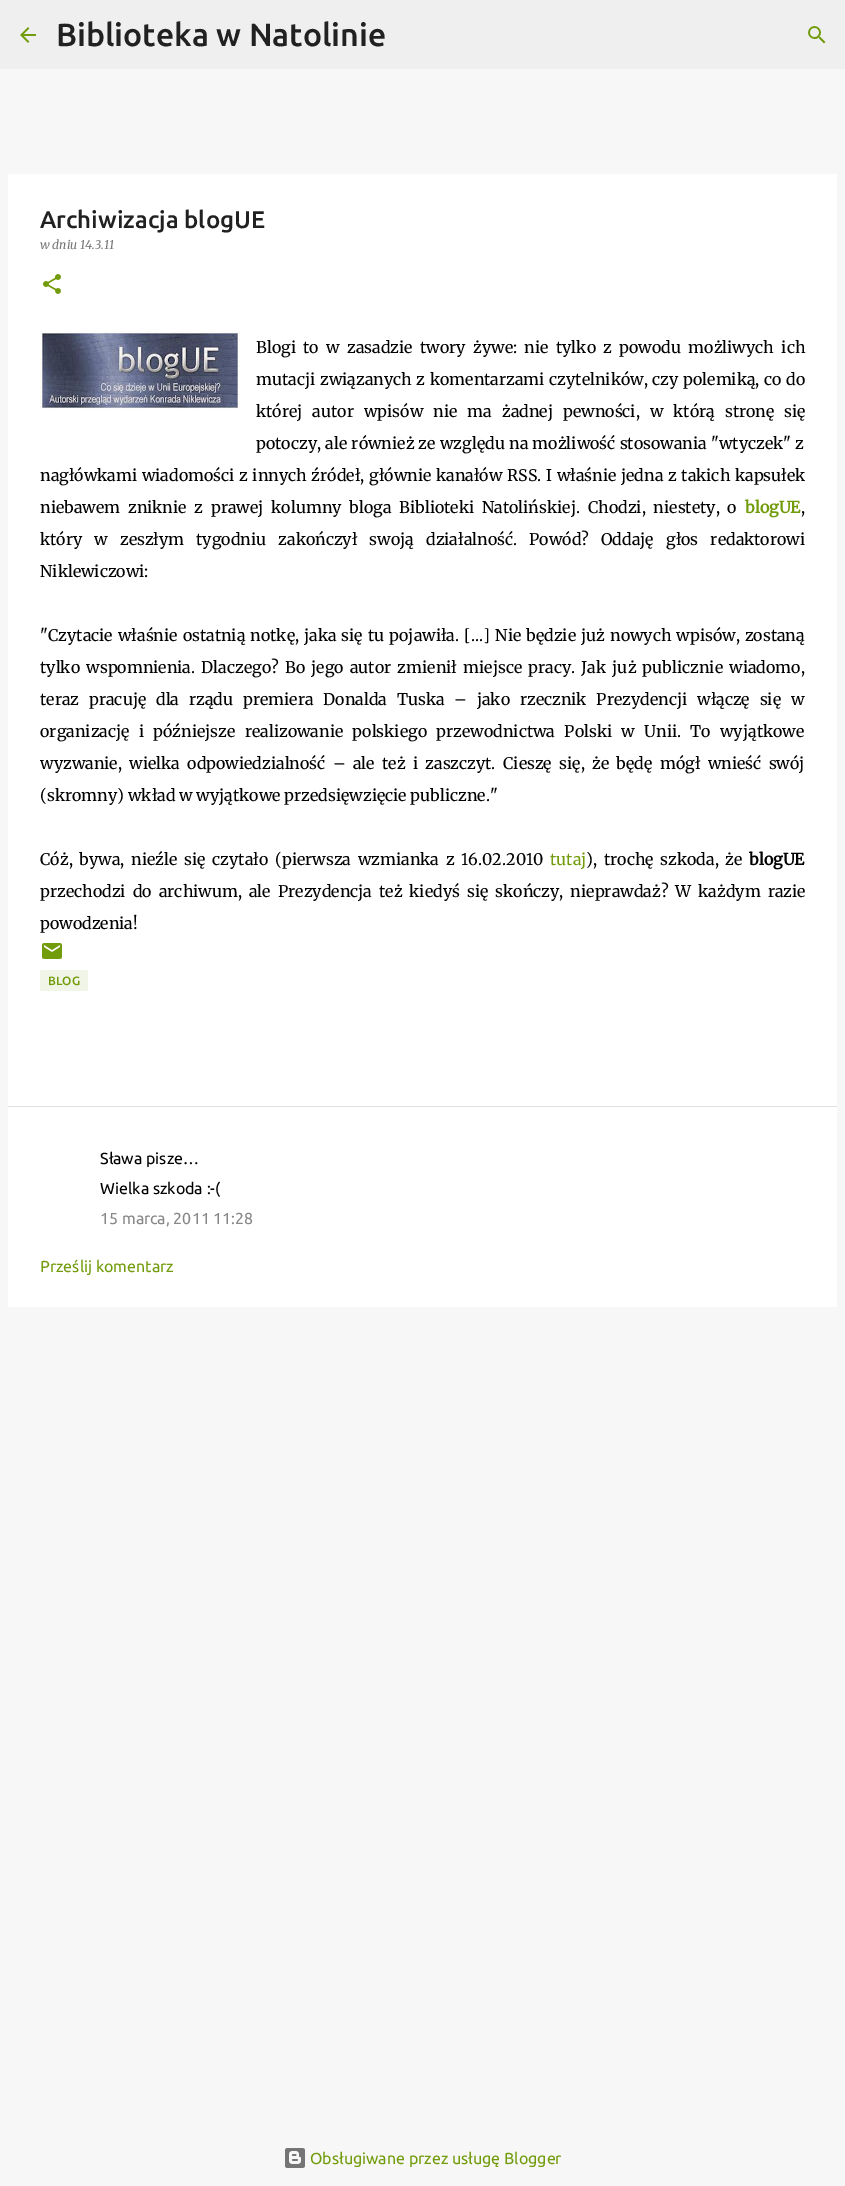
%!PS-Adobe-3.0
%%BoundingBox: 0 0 845 2186
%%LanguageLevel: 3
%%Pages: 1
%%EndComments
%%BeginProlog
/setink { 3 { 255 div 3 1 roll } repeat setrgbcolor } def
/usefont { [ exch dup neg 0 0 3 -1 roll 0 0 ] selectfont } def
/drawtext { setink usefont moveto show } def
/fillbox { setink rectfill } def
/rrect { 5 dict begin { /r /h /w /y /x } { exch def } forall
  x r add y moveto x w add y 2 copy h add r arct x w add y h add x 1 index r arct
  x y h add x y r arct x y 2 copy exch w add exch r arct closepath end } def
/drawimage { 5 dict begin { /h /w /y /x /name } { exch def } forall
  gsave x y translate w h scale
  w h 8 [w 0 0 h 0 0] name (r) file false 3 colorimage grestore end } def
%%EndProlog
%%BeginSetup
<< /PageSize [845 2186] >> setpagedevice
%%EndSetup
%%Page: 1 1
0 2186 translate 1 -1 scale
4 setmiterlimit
0 0 845 2186 247 247 247 fillbox
0 0 845 69 239 239 239 fillbox
(assets/img1.rgb) 20 27 16 16 drawimage
(Biblioteka w Natolinie) 56 46 /Ubuntu-Medium 32 33 33 33 drawtext
(assets/img2.rgb) 808 26 18 18 drawimage
8 174 829 932 255 255 255 fillbox
(Archiwizacja blogUE) 40 228 /Ubuntu-Medium 24 33 33 33 drawtext
(w dniu 14.3.11) 40 249 /Merriweather-Italic 12 117 117 117 drawtext
(assets/img3.rgb) 43 274 18 20 drawimage
(assets/img4.rgb) 40 331 200 79 drawimage
/Merriweather-Light 16 usefont
0 0 0 setink
256 353 moveto 3.6 0 32 (Blogi to w zasadzie twory żywe: nie tylko z powodu możliwych ich) widthshow
256 385 moveto 0.9 0 32 (mutacji związanych z komentarzami czytelników, czy polemiką, co do) widthshow
256 417 moveto 6.25 0 32 (której autor wpisów nie ma żadnej pewności, w którą stronę się) widthshow
256 449 moveto 0.5 0 32 (potoczy, ale również ze względu na możliwość stosowania "wtyczek" z) widthshow
40 481 moveto 0.9 0 32 (nagłówkami wiadomości z innych źródeł, głównie kanałów RSS. I właśnie jedna z takich kapsułek) widthshow
40 513 moveto 4 0 32 (niebawem zniknie z prawej kolumny bloga Biblioteki Natolińskiej. Chodzi, niestety, o) widthshow
(blogUE) 745 513 /Merriweather-Bold 16 114 156 11 drawtext
(,) 801 513 /Merriweather-Light 16 0 0 0 drawtext
40 545 moveto 8.25 0 32 (który w zeszłym tygodniu zakończył swoją działalność. Powód? Oddaję głos redaktorowi) widthshow
(Niklewiczowi:) 40 577 /Merriweather-Light 16 0 0 0 drawtext
40 641 moveto 1.25 0 32 ("Czytacie właśnie ostatnią notkę, jaka się tu pojawiła. [...] Nie będzie już nowych wpisów, zostaną) widthshow
40 673 moveto 2.4 0 32 (tylko wspomnienia. Dlaczego? Bo jego autor zmienił miejsce pracy. Jak już publicznie wiadomo,) widthshow
40 705 moveto 6 0 32 (teraz pracuję dla rządu premiera Donalda Tuska – jako rzecznik Prezydencji włączę się w) widthshow
40 737 moveto 5.5 0 32 (organizację i późniejsze realizowanie polskiego przewodnictwa Polski w Unii. To wyjątkowe) widthshow
40 769 moveto 3.6 0 32 (wyzwanie, wielka odpowiedzialność – ale też i zaszczyt. Cieszę się, że będę mógł wnieść swój) widthshow
(\(skromny\) wkład w wyjątkowe przedsięwzięcie publiczne.") 40 801 /Merriweather-Light 16 0 0 0 drawtext
40 865 moveto 3 0 32 (Cóż, bywa, nieźle się czytało \(pierwsza wzmianka z 16.02.2010) widthshow
(tutaj) 550 865 /Merriweather-Light 16 114 156 11 drawtext
0 0 0 setink
586 865 moveto 3 0 32 (\), trochę szkoda, że) widthshow
(blogUE) 749 865 /Merriweather-Bold 16 0 0 0 drawtext
/Merriweather-Light 16 usefont
40 897 moveto 3.25 0 32 (przechodzi do archiwum, ale Prezydencja też kiedyś się skończy, nieprawdaż? W każdym razie) widthshow
(powodzenia!) 40 929 /Merriweather-Light 16 0 0 0 drawtext
(assets/img5.rgb) 42 943 20 16 drawimage
241 245 231 setink
40 970 48 21 2 rrect fill
(BLOG) 48 985 /Ubuntu-Medium 12 114 156 11 drawtext
8 1107 829 200 255 255 255 fillbox
8 1106 829 1 224 224 224 fillbox
(Sława pisze…) 100 1164 /Ubuntu-Regular 16 0 0 0 drawtext
(Wielka szkoda :-\() 100 1194 /Ubuntu-Regular 16 0 0 0 drawtext
(15 marca, 2011 11:28) 100 1224 /Ubuntu-Regular 16 135 135 135 drawtext
(Prześlij komentarz) 40 1272 /Ubuntu-Regular 16 114 156 11 drawtext
(assets/img6.rgb) 285 2148 20 20 drawimage
(Obsługiwane przez usługę Blogger) 310 2164 /Ubuntu-Regular 16 114 156 11 drawtext
showpage
%%EOF
